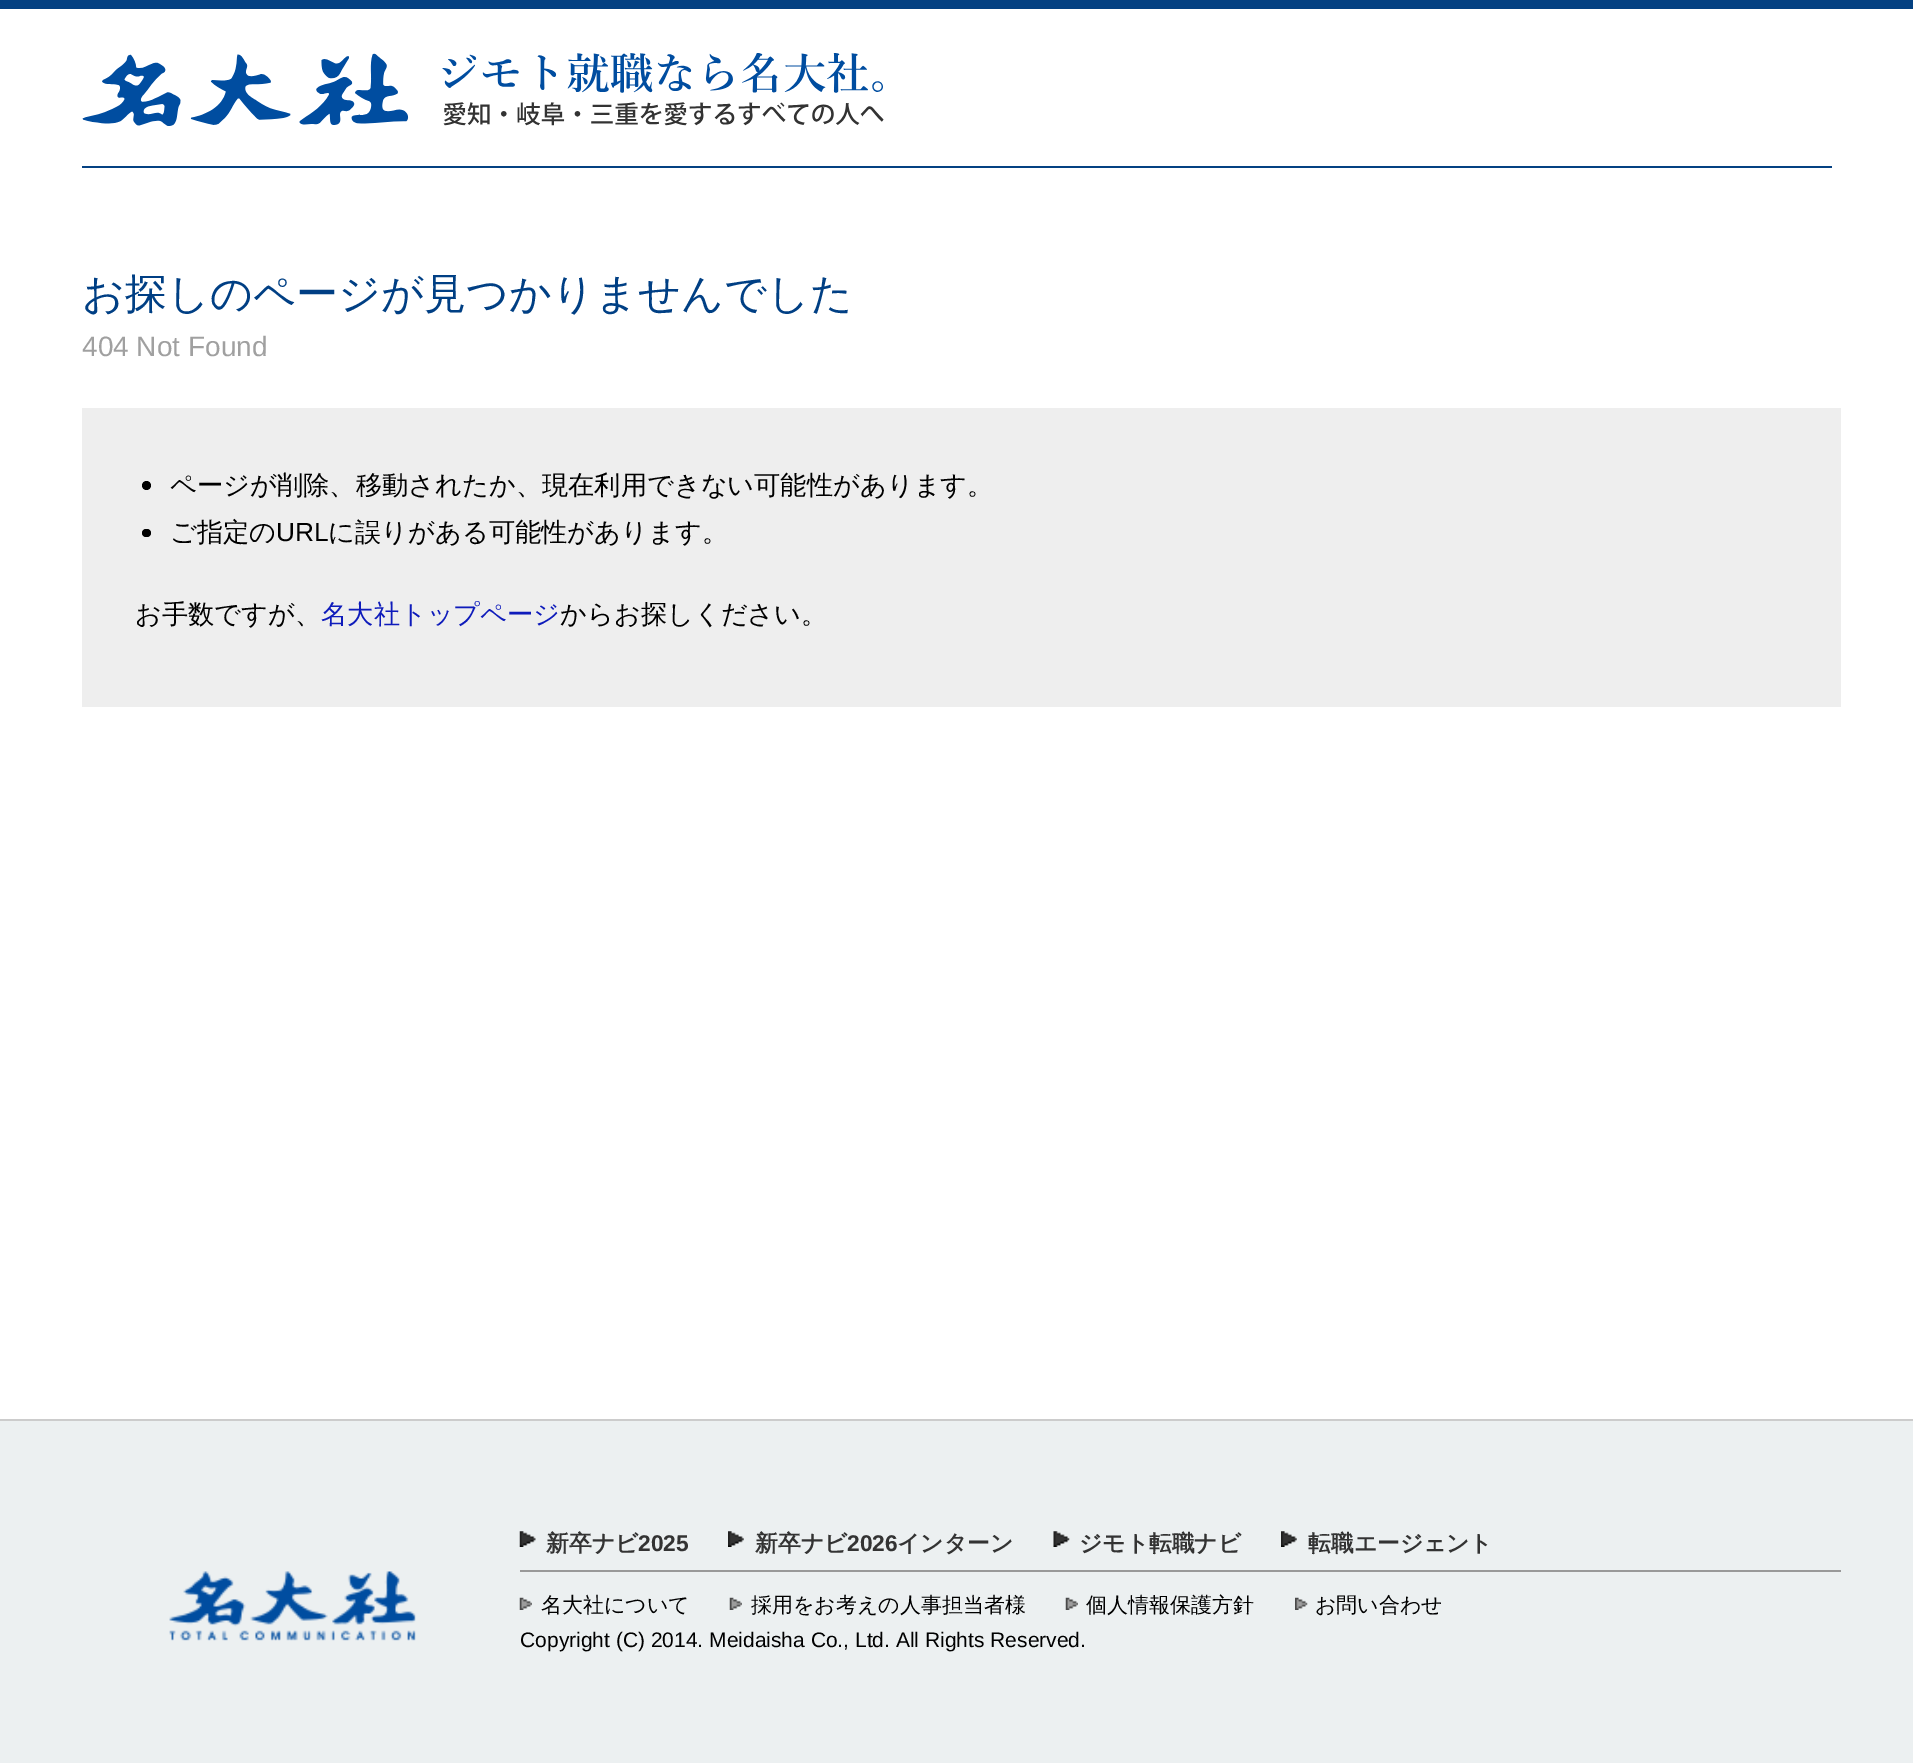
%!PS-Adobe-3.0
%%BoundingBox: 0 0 1913 1763
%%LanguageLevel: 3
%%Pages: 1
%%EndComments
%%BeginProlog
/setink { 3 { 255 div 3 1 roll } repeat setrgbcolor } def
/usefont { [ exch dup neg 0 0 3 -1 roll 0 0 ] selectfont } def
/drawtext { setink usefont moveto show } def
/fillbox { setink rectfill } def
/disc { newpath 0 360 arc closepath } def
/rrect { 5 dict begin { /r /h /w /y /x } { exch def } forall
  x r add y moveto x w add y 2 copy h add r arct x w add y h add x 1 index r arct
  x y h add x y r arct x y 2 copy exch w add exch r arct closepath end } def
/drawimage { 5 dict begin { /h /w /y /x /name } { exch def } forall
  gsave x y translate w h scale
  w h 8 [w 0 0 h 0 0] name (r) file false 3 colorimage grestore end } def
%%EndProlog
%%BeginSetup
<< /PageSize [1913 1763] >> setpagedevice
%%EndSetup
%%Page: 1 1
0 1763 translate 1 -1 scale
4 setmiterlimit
0 0 1913 1763 255 255 255 fillbox
0 0 1913 9 4 65 130 fillbox
82 166 1750 2 4 65 130 fillbox
(assets/img1.rgb) 82 53 802 73 drawimage
(お探しのページが見つかりませんでした) 82 308 /WenQuanYiZenHei-Medium 42 0 63 132 drawtext
(404 Not Found) 82 356 /LiberationSans-Regular 28 160 160 160 drawtext
82 408 1759 299 238 238 238 fillbox
0 0 0 setink
146.5 485.5 4.5 disc fill
(ページが削除、移動されたか、現在利用できない可能性があります。) 170 494 /WenQuanYiZenHei-Medium 26.25 0 0 0 drawtext
142 529 9 8 4 rrect fill
(ご指定の) 170 541 /WenQuanYiZenHei-Medium 26.25 0 0 0 drawtext
(URL) 276 541 /LiberationSans-Regular 26.25 0 0 0 drawtext
(に誤りがある可能性があります。) 328 541 /WenQuanYiZenHei-Medium 26.25 0 0 0 drawtext
(お手数ですが、) 135 623 /WenQuanYiZenHei-Medium 26.25 0 0 0 drawtext
(名大社トップページ) 321 623 /WenQuanYiZenHei-Medium 26.25 14 27 187 drawtext
(からお探しください。) 560 623 /WenQuanYiZenHei-Medium 26.25 0 0 0 drawtext
0 1421 1913 342 236 240 241 fillbox
0 1419 1913 2 204 204 204 fillbox
520 1570 1321 2 153 153 153 fillbox
(assets/img2.rgb) 519 1531 17 16 drawimage
(新卒ナビ) 546 1551 /WenQuanYiZenHei-Bold 22.75 51 51 51 drawtext
(2025) 638 1551 /LiberationSans-Bold 22.75 51 51 51 drawtext
(assets/img3.rgb) 728 1531 16 16 drawimage
(新卒ナビ) 755 1551 /WenQuanYiZenHei-Bold 22.75 51 51 51 drawtext
(2026) 847 1551 /LiberationSans-Bold 22.75 51 51 51 drawtext
(インターン) 897 1551 /WenQuanYiZenHei-Bold 22.75 51 51 51 drawtext
(assets/img4.rgb) 1053 1531 17 16 drawimage
(ジモト転職ナビ) 1079 1551 /WenQuanYiZenHei-Bold 22.75 51 51 51 drawtext
(assets/img5.rgb) 1281 1531 16 16 drawimage
(転職エージェント) 1308 1551 /WenQuanYiZenHei-Bold 22.75 51 51 51 drawtext
(assets/img6.rgb) 169 1571 247 70 drawimage
(assets/img7.rgb) 519 1597 13 13 drawimage
(名大社について) 541 1612 /WenQuanYiZenHei-Medium 21 0 0 0 drawtext
(assets/img8.rgb) 729 1597 13 13 drawimage
(採用をお考えの人事担当者様) 751 1612 /WenQuanYiZenHei-Medium 21 0 0 0 drawtext
(assets/img8.rgb) 1065 1597 13 13 drawimage
(個人情報保護方針) 1086 1612 /WenQuanYiZenHei-Medium 21 0 0 0 drawtext
(assets/img9.rgb) 1295 1597 13 13 drawimage
(お問い合わせ) 1315 1612 /WenQuanYiZenHei-Medium 21 0 0 0 drawtext
(Copyright \(C\) 2014. Meidaisha Co., Ltd. All Rights Reserved.) 520 1647 /LiberationSans-Regular 21 0 0 0 drawtext
showpage
%%EOF
